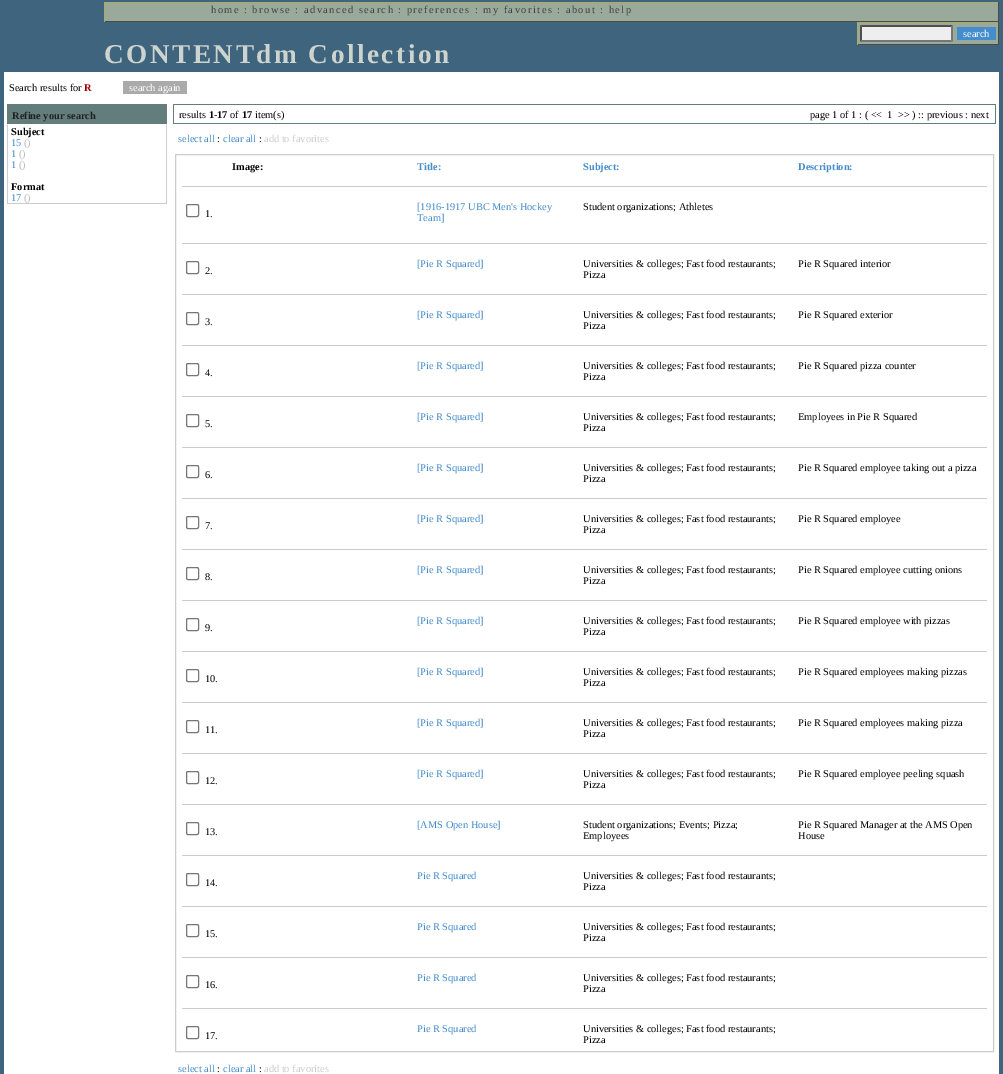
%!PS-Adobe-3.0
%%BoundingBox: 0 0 1003 1074
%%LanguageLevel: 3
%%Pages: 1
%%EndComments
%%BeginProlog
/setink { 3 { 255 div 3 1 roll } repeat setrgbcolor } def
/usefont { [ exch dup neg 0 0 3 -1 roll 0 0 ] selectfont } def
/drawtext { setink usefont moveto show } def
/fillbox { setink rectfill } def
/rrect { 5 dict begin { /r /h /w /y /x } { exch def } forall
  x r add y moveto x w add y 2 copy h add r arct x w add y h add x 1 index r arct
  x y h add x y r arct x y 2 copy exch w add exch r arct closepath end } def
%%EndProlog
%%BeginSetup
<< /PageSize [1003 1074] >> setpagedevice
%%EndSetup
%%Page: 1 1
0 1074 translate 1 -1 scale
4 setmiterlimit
0 0 1003 1074 255 255 255 fillbox
0 0 4 1074 62 100 126 fillbox
4 0 995 72 62 100 126 fillbox
105 3 893 18 153 169 154 fillbox
104 2 895 1 173 168 107 fillbox
104 21 883 1 76 76 69 fillbox
104 2 1 20 173 168 107 fillbox
/LiberationSerif-Regular 10.4 usefont
64 64 64 setink
211 13 moveto 1.47 0 (home : browse : advanced search : preferences : my favorites : about : help) ashow
998 2 1 20 76 76 69 fillbox
987 21 12 1 76 76 69 fillbox
858 23 140 21 153 169 154 fillbox
857 22 142 1 173 168 107 fillbox
857 44 98 1 76 76 69 fillbox
857 22 1 23 173 168 107 fillbox
860 25 93 17 238 238 238 fillbox
79 79 79 setink
860 25 moveto 953 25 lineto 951 27 lineto 862 27 lineto closepath fill
118 118 118 setink
953 25 moveto 953 42 lineto 951 40 lineto 951 27 lineto closepath fill
953 42 moveto 860 42 lineto 862 40 lineto 951 40 lineto closepath fill
79 79 79 setink
860 42 moveto 860 25 lineto 862 27 lineto 862 40 lineto closepath fill
998 22 1 23 76 76 69 fillbox
955 44 44 1 76 76 69 fillbox
957 27 39 13 68 140 203 fillbox
(search) 963 37 /LiberationSerif-Regular 10.4 255 255 255 drawtext
/LiberationSerif-Bold 27.25 usefont
205 211 205 setink
104 63 moveto 2.5 0 (CONTENTdm Collection) ashow
999 0 4 1074 62 100 126 fillbox
(Search results for) 9 91 /LiberationSerif-Regular 10.4 0 0 0 drawtext
(R) 84 91 /LiberationSerif-Bold 10.4 153 0 0 drawtext
123 81 64 13 170 170 170 fillbox
(search again) 129 91 /LiberationSerif-Regular 10.4 255 255 255 drawtext
7 104 160 20 98 125 124 fillbox
(Refine your search) 12 119 /LiberationSerif-Bold 10.4 32 32 32 drawtext
204 204 204 setink
167 124 moveto 167 204 lineto 166 203 lineto 166 126 lineto closepath fill
7 203 160 1 204 204 204 fillbox
7 204 moveto 7 124 lineto 8 126 lineto 8 203 lineto closepath fill
(Subject) 11 135 /LiberationSerif-Bold 10.4 0 0 0 drawtext
(15) 11 146 /LiberationSerif-Regular 10.4 68 140 203 drawtext
(\(\)) 24 146 /LiberationSerif-Regular 10.4 187 187 187 drawtext
(1) 11 157 /LiberationSerif-Regular 10.4 68 140 203 drawtext
(\(\)) 19 157 /LiberationSerif-Regular 10.4 187 187 187 drawtext
(1) 11 168 /LiberationSerif-Regular 10.4 68 140 203 drawtext
(\(\)) 19 168 /LiberationSerif-Regular 10.4 187 187 187 drawtext
(Format) 11 190 /LiberationSerif-Bold 10.4 0 0 0 drawtext
(17) 11 201 /LiberationSerif-Regular 10.4 68 140 203 drawtext
(\(\)) 24 201 /LiberationSerif-Regular 10.4 187 187 187 drawtext
173 104 823 1 98 125 124 fillbox
173 123 815 1 98 125 124 fillbox
173 104 1 20 98 125 124 fillbox
(results) 179 118 /LiberationSerif-Regular 10.4 0 0 0 drawtext
(1) 209 118 /LiberationSerif-Bold 10.4 0 0 0 drawtext
(-) 214 118 /LiberationSerif-Regular 10.4 0 0 0 drawtext
(17) 217 118 /LiberationSerif-Bold 10.4 0 0 0 drawtext
(of) 230 118 /LiberationSerif-Regular 10.4 0 0 0 drawtext
(17) 242 118 /LiberationSerif-Bold 10.4 0 0 0 drawtext
(item\(s\)) 255 118 /LiberationSerif-Regular 10.4 0 0 0 drawtext
(page 1 of 1 : \( <<) 810 118 /LiberationSerif-Regular 10.4 0 0 0 drawtext
(1) 887 118 /LiberationSerif-Regular 10.4 0 0 0 drawtext
(>> \) :: previous : next) 898 118 /LiberationSerif-Regular 10.4 0 0 0 drawtext
995 104 1 20 98 125 124 fillbox
988 123 8 1 98 125 124 fillbox
(select all) 178 142 /LiberationSerif-Regular 10.4 68 140 203 drawtext
(:) 217 142 /LiberationSerif-Regular 10.4 0 0 0 drawtext
(clear all) 223 142 /LiberationSerif-Regular 10.4 68 140 203 drawtext
(:) 259 142 /LiberationSerif-Regular 10.4 0 0 0 drawtext
(add to favorites) 264 142 /LiberationSerif-Regular 10.4 204 204 204 drawtext
175.5 154.5 818 897 rectstroke
(Image:) 232 170 /LiberationSerif-Bold 10.4 0 0 0 drawtext
(Title:) 417 170 /LiberationSerif-Bold 10.4 68 140 203 drawtext
(Subject:) 583 170 /LiberationSerif-Bold 10.4 68 140 203 drawtext
(Description:) 798 170 /LiberationSerif-Bold 10.4 68 140 203 drawtext
182 186 805 1 204 204 204 fillbox
([1916-1917 UBC Men's Hockey) 417 210 /LiberationSerif-Regular 10.4 68 140 203 drawtext
(Team]) 417 221 /LiberationSerif-Regular 10.4 68 140 203 drawtext
(Student organizations; Athletes) 583 210 /LiberationSerif-Regular 10.4 0 0 0 drawtext
118 118 118 setink
186.5 204.5 12 12 1.5 rrect stroke
(1.) 205 217 /LiberationSerif-Regular 10.4 0 0 0 drawtext
182 243 805 1 204 204 204 fillbox
([Pie R Squared]) 417 267 /LiberationSerif-Regular 10.4 68 140 203 drawtext
(Universities & colleges; Fast food restaurants;) 583 267 /LiberationSerif-Regular 10.4 0 0 0 drawtext
(Pizza) 583 278 /LiberationSerif-Regular 10.4 0 0 0 drawtext
(Pie R Squared interior) 798 267 /LiberationSerif-Regular 10.4 0 0 0 drawtext
118 118 118 setink
186.5 261.5 12 12 1.5 rrect stroke
(2.) 205 274 /LiberationSerif-Regular 10.4 0 0 0 drawtext
182 294 805 1 204 204 204 fillbox
([Pie R Squared]) 417 318 /LiberationSerif-Regular 10.4 68 140 203 drawtext
(Universities & colleges; Fast food restaurants;) 583 318 /LiberationSerif-Regular 10.4 0 0 0 drawtext
(Pizza) 583 329 /LiberationSerif-Regular 10.4 0 0 0 drawtext
(Pie R Squared exterior) 798 318 /LiberationSerif-Regular 10.4 0 0 0 drawtext
118 118 118 setink
186.5 312.5 12 12 1.5 rrect stroke
(3.) 205 325 /LiberationSerif-Regular 10.4 0 0 0 drawtext
182 345 805 1 204 204 204 fillbox
([Pie R Squared]) 417 369 /LiberationSerif-Regular 10.4 68 140 203 drawtext
(Universities & colleges; Fast food restaurants;) 583 369 /LiberationSerif-Regular 10.4 0 0 0 drawtext
(Pizza) 583 380 /LiberationSerif-Regular 10.4 0 0 0 drawtext
(Pie R Squared pizza counter) 798 369 /LiberationSerif-Regular 10.4 0 0 0 drawtext
118 118 118 setink
186.5 363.5 12 12 1.5 rrect stroke
(4.) 205 376 /LiberationSerif-Regular 10.4 0 0 0 drawtext
182 396 805 1 204 204 204 fillbox
([Pie R Squared]) 417 420 /LiberationSerif-Regular 10.4 68 140 203 drawtext
(Universities & colleges; Fast food restaurants;) 583 420 /LiberationSerif-Regular 10.4 0 0 0 drawtext
(Pizza) 583 431 /LiberationSerif-Regular 10.4 0 0 0 drawtext
(Employees in Pie R Squared) 798 420 /LiberationSerif-Regular 10.4 0 0 0 drawtext
118 118 118 setink
186.5 414.5 12 12 1.5 rrect stroke
(5.) 205 427 /LiberationSerif-Regular 10.4 0 0 0 drawtext
182 447 805 1 204 204 204 fillbox
([Pie R Squared]) 417 471 /LiberationSerif-Regular 10.4 68 140 203 drawtext
(Universities & colleges; Fast food restaurants;) 583 471 /LiberationSerif-Regular 10.4 0 0 0 drawtext
(Pizza) 583 482 /LiberationSerif-Regular 10.4 0 0 0 drawtext
(Pie R Squared employee taking out a pizza) 798 471 /LiberationSerif-Regular 10.4 0 0 0 drawtext
118 118 118 setink
186.5 465.5 12 12 1.5 rrect stroke
(6.) 205 478 /LiberationSerif-Regular 10.4 0 0 0 drawtext
182 498 805 1 204 204 204 fillbox
([Pie R Squared]) 417 522 /LiberationSerif-Regular 10.4 68 140 203 drawtext
(Universities & colleges; Fast food restaurants;) 583 522 /LiberationSerif-Regular 10.4 0 0 0 drawtext
(Pizza) 583 533 /LiberationSerif-Regular 10.4 0 0 0 drawtext
(Pie R Squared employee) 798 522 /LiberationSerif-Regular 10.4 0 0 0 drawtext
118 118 118 setink
186.5 516.5 12 12 1.5 rrect stroke
(7.) 205 529 /LiberationSerif-Regular 10.4 0 0 0 drawtext
182 549 805 1 204 204 204 fillbox
([Pie R Squared]) 417 573 /LiberationSerif-Regular 10.4 68 140 203 drawtext
(Universities & colleges; Fast food restaurants;) 583 573 /LiberationSerif-Regular 10.4 0 0 0 drawtext
(Pizza) 583 584 /LiberationSerif-Regular 10.4 0 0 0 drawtext
(Pie R Squared employee cutting onions) 798 573 /LiberationSerif-Regular 10.4 0 0 0 drawtext
118 118 118 setink
186.5 567.5 12 12 1.5 rrect stroke
(8.) 205 580 /LiberationSerif-Regular 10.4 0 0 0 drawtext
182 600 805 1 204 204 204 fillbox
([Pie R Squared]) 417 624 /LiberationSerif-Regular 10.4 68 140 203 drawtext
(Universities & colleges; Fast food restaurants;) 583 624 /LiberationSerif-Regular 10.4 0 0 0 drawtext
(Pizza) 583 635 /LiberationSerif-Regular 10.4 0 0 0 drawtext
(Pie R Squared employee with pizzas) 798 624 /LiberationSerif-Regular 10.4 0 0 0 drawtext
118 118 118 setink
186.5 618.5 12 12 1.5 rrect stroke
(9.) 205 631 /LiberationSerif-Regular 10.4 0 0 0 drawtext
182 651 805 1 204 204 204 fillbox
([Pie R Squared]) 417 675 /LiberationSerif-Regular 10.4 68 140 203 drawtext
(Universities & colleges; Fast food restaurants;) 583 675 /LiberationSerif-Regular 10.4 0 0 0 drawtext
(Pizza) 583 686 /LiberationSerif-Regular 10.4 0 0 0 drawtext
(Pie R Squared employees making pizzas) 798 675 /LiberationSerif-Regular 10.4 0 0 0 drawtext
118 118 118 setink
186.5 669.5 12 12 1.5 rrect stroke
(10.) 205 682 /LiberationSerif-Regular 10.4 0 0 0 drawtext
182 702 805 1 204 204 204 fillbox
([Pie R Squared]) 417 726 /LiberationSerif-Regular 10.4 68 140 203 drawtext
(Universities & colleges; Fast food restaurants;) 583 726 /LiberationSerif-Regular 10.4 0 0 0 drawtext
(Pizza) 583 737 /LiberationSerif-Regular 10.4 0 0 0 drawtext
(Pie R Squared employees making pizza) 798 726 /LiberationSerif-Regular 10.4 0 0 0 drawtext
118 118 118 setink
186.5 720.5 12 12 1.5 rrect stroke
(11.) 205 733 /LiberationSerif-Regular 10.4 0 0 0 drawtext
182 753 805 1 204 204 204 fillbox
([Pie R Squared]) 417 777 /LiberationSerif-Regular 10.4 68 140 203 drawtext
(Universities & colleges; Fast food restaurants;) 583 777 /LiberationSerif-Regular 10.4 0 0 0 drawtext
(Pizza) 583 788 /LiberationSerif-Regular 10.4 0 0 0 drawtext
(Pie R Squared employee peeling squash) 798 777 /LiberationSerif-Regular 10.4 0 0 0 drawtext
118 118 118 setink
186.5 771.5 12 12 1.5 rrect stroke
(12.) 205 784 /LiberationSerif-Regular 10.4 0 0 0 drawtext
182 804 805 1 204 204 204 fillbox
118 118 118 setink
186.5 822.5 12 12 1.5 rrect stroke
(13.) 205 835 /LiberationSerif-Regular 10.4 0 0 0 drawtext
([AMS Open House]) 417 828 /LiberationSerif-Regular 10.4 68 140 203 drawtext
(Student organizations; Events; Pizza;) 583 828 /LiberationSerif-Regular 10.4 0 0 0 drawtext
(Employees) 583 839 /LiberationSerif-Regular 10.4 0 0 0 drawtext
(Pie R Squared Manager at the AMS Open) 798 828 /LiberationSerif-Regular 10.4 0 0 0 drawtext
(House) 798 839 /LiberationSerif-Regular 10.4 0 0 0 drawtext
182 855 805 1 204 204 204 fillbox
118 118 118 setink
186.5 873.5 12 12 1.5 rrect stroke
(14.) 205 886 /LiberationSerif-Regular 10.4 0 0 0 drawtext
(Pie R Squared) 417 879 /LiberationSerif-Regular 10.4 68 140 203 drawtext
(Universities & colleges; Fast food restaurants;) 583 879 /LiberationSerif-Regular 10.4 0 0 0 drawtext
(Pizza) 583 890 /LiberationSerif-Regular 10.4 0 0 0 drawtext
182 906 805 1 204 204 204 fillbox
118 118 118 setink
186.5 924.5 12 12 1.5 rrect stroke
(15.) 205 937 /LiberationSerif-Regular 10.4 0 0 0 drawtext
(Pie R Squared) 417 930 /LiberationSerif-Regular 10.4 68 140 203 drawtext
(Universities & colleges; Fast food restaurants;) 583 930 /LiberationSerif-Regular 10.4 0 0 0 drawtext
(Pizza) 583 941 /LiberationSerif-Regular 10.4 0 0 0 drawtext
182 957 805 1 204 204 204 fillbox
118 118 118 setink
186.5 975.5 12 12 1.5 rrect stroke
(16.) 205 988 /LiberationSerif-Regular 10.4 0 0 0 drawtext
(Pie R Squared) 417 981 /LiberationSerif-Regular 10.4 68 140 203 drawtext
(Universities & colleges; Fast food restaurants;) 583 981 /LiberationSerif-Regular 10.4 0 0 0 drawtext
(Pizza) 583 992 /LiberationSerif-Regular 10.4 0 0 0 drawtext
182 1008 805 1 204 204 204 fillbox
118 118 118 setink
186.5 1026.5 12 12 1.5 rrect stroke
(17.) 205 1039 /LiberationSerif-Regular 10.4 0 0 0 drawtext
(Pie R Squared) 417 1032 /LiberationSerif-Regular 10.4 68 140 203 drawtext
(Universities & colleges; Fast food restaurants;) 583 1032 /LiberationSerif-Regular 10.4 0 0 0 drawtext
(Pizza) 583 1043 /LiberationSerif-Regular 10.4 0 0 0 drawtext
(select all) 178 1072 /LiberationSerif-Regular 10.4 68 140 203 drawtext
(:) 217 1072 /LiberationSerif-Regular 10.4 0 0 0 drawtext
(clear all) 223 1072 /LiberationSerif-Regular 10.4 68 140 203 drawtext
(:) 259 1072 /LiberationSerif-Regular 10.4 0 0 0 drawtext
(add to favorites) 264 1072 /LiberationSerif-Regular 10.4 204 204 204 drawtext
showpage
%%EOF
